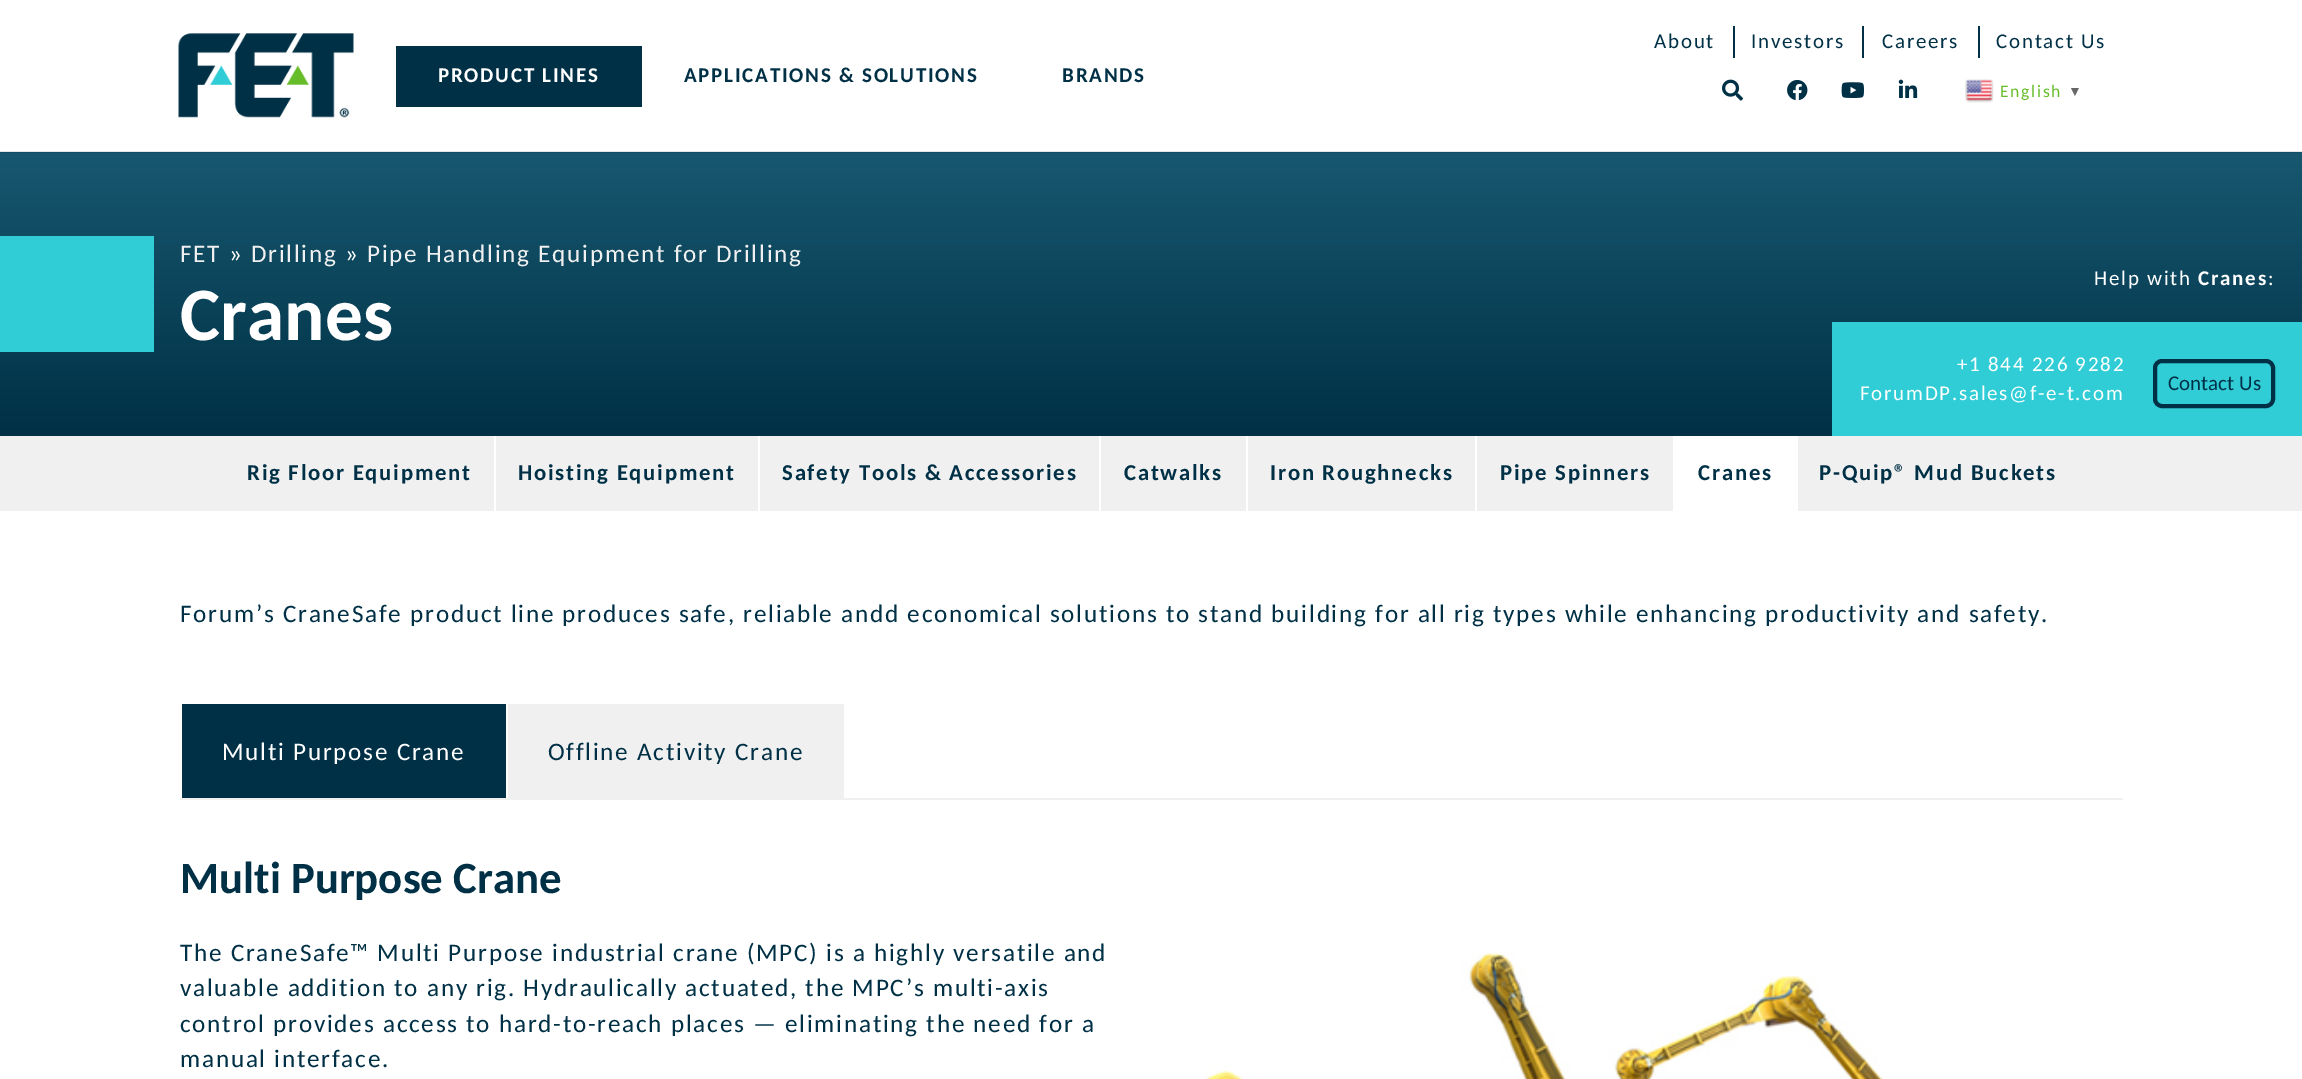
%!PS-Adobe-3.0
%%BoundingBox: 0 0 2302 1079
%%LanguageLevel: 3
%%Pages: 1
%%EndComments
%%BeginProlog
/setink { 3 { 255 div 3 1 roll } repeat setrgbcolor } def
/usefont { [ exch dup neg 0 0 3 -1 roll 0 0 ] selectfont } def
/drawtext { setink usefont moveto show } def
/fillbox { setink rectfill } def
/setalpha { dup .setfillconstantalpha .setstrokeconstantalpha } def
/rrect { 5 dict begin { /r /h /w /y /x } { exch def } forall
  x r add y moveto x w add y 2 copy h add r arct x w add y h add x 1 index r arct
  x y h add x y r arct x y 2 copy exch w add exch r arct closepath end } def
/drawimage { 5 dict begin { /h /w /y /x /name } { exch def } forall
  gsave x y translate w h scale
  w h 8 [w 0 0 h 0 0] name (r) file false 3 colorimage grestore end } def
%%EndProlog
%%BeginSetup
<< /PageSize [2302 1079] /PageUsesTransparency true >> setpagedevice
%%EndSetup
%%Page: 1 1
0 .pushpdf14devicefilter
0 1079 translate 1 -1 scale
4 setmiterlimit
0 0 2302 1079 255 255 255 fillbox
gsave 0 152 moveto 2302 152 lineto 2302 436 lineto 0 436 lineto closepath clip newpath
<< /ShadingType 2 /ColorSpace /DeviceRGB /Coords [1152 152 1152 436] /Extend [true true] /Function << /FunctionType 2 /Domain [0 1] /C0 [0.09 0.345 0.439] /C1 [0 0.188 0.271] /N 1 >> >> shfill grestore
0.1 setalpha
0 151 2302 2 0 0 0 fillbox
1 setalpha
(assets/img1.rgb) 178 33 176 85 drawimage
396 46 246 61 0 48 69 fillbox
/Carlito-Bold 21 usefont
255 255 255 setink
438 82 moveto 1.75 0 (PRODUCT LINES) ashow
0 48 69 setink
684 82 moveto 1.75 0 (APPLICATIONS & SOLUTIONS) ashow
1062 82 moveto 1.75 0 (BRANDS) ashow
/Carlito-Regular 21 usefont
1654 48 moveto 1.75 0 (About) ashow
1733 26 2 32 0 48 69 fillbox
1751 48 moveto 1.75 0 (Investors) ashow
1862 26 2 32 0 48 69 fillbox
1882 48 moveto 1.75 0 (Careers) ashow
1978 26 2 32 0 48 69 fillbox
1996 48 moveto 1.75 0 (Contact Us) ashow
(assets/img2.rgb) 1722 79 21 22 drawimage
(assets/img3.rgb) 1787 80 21 21 drawimage
(assets/img4.rgb) 1841 82 23 16 drawimage
(assets/img5.rgb) 1898 79 20 19 drawimage
(assets/img6.rgb) 1965 79 29 24 drawimage
/Carlito-Regular 17.5 usefont
102 188 41 setink
2000 97 moveto 1.75 0 (English) ashow
/LiberationSans-Bold 14 usefont
102 102 102 setink
2068 96 moveto 1.75 0 (▼) ashow
0 236 154 116 48 205 215 fillbox
/Carlito-Regular 25.2 usefont
240 240 240 setink
180 262 moveto 1.75 0 (FET) ashow
255 255 255 setink
229 262 moveto 1.75 0 (») ashow
240 240 240 setink
251 262 moveto 1.75 0 (Drilling) ashow
255 255 255 setink
345 262 moveto 1.75 0 (») ashow
240 240 240 setink
367 262 moveto 1.75 0 (Pipe Handling Equipment for Drilling) ashow
(Cranes) 180 340 /Carlito-Bold 75.5 255 255 255 drawtext
/Carlito-Regular 21 usefont
2094 285 moveto 1.75 0 (Help with) ashow
/Carlito-Bold 21 usefont
2198 285 moveto 1.75 0 (Cranes) ashow
/Carlito-Regular 21 usefont
2268 285 moveto 1.75 0 (:) ashow
1832 322 470 114 48 205 215 fillbox
255 255 255 setink
1957 371 moveto 1.75 0 (+1 844 226 9282) ashow
1860 400 moveto 1.75 0 (ForumDP.sales@f-e-t.com) ashow
0 48 69 setink
4 setlinewidth
2155 361 118 45 7 rrect stroke
(Contact Us) 2168 390 /Carlito-Regular 21 0 48 69 drawtext
0 436 2302 75 240 240 240 fillbox
/Carlito-Bold 22.75 usefont
0 48 69 setink
247 480 moveto 1.75 0 (Rig Floor Equipment) ashow
494 436 2 75 255 255 255 fillbox
0 48 69 setink
518 480 moveto 1.75 0 (Hoisting Equipment) ashow
758 436 2 75 255 255 255 fillbox
0 48 69 setink
782 480 moveto 1.75 0 (Safety Tools & Accessories) ashow
1099 436 2 75 255 255 255 fillbox
0 48 69 setink
1124 480 moveto 1.75 0 (Catwalks) ashow
1246 436 2 75 255 255 255 fillbox
0 48 69 setink
1270 480 moveto 1.75 0 (Iron Roughnecks) ashow
1475 436 2 75 255 255 255 fillbox
0 48 69 setink
1500 480 moveto 1.75 0 (Pipe Spinners) ashow
1673 436 125 75 255 255 255 fillbox
0 48 69 setink
1698 480 moveto 1.75 0 (Cranes) ashow
1819 480 moveto 1.75 0 (P-Quip® Mud Buckets) ashow
/Carlito-Regular 25.2 usefont
180 622 moveto 1.75 0 (Forum’s CraneSafe product line produces safe, reliable andd economical solutions to stand building for all rig types while enhancing productivity and safety.) ashow
180 798 1943 2 240 240 240 fillbox
182 704 324 94 0 48 69 fillbox
255 255 255 setink
222 760 moveto 1.75 0 (Multi Purpose Crane) ashow
508 704 336 94 240 240 240 fillbox
0 48 69 setink
548 760 moveto 1.75 0 (Offline Activity Crane) ashow
(Multi Purpose Crane) 180 893 /Carlito-Bold 44.75 0 48 69 drawtext
/Carlito-Regular 25.2 usefont
180 961 moveto 1.75 0 (The CraneSafe™ Multi Purpose industrial crane \(MPC\) is a highly versatile and) ashow
180 996 moveto 1.75 0 (valuable addition to any rig. Hydraulically actuated, the MPC’s multi-axis) ashow
180 1032 moveto 1.75 0 (control provides access to hard-to-reach places — eliminating the need for a) ashow
180 1067 moveto 1.75 0 (manual interface.) ashow
(assets/img7.rgb) 1205 951 679 128 drawimage
.poppdf14devicefilter showpage
%%EOF
